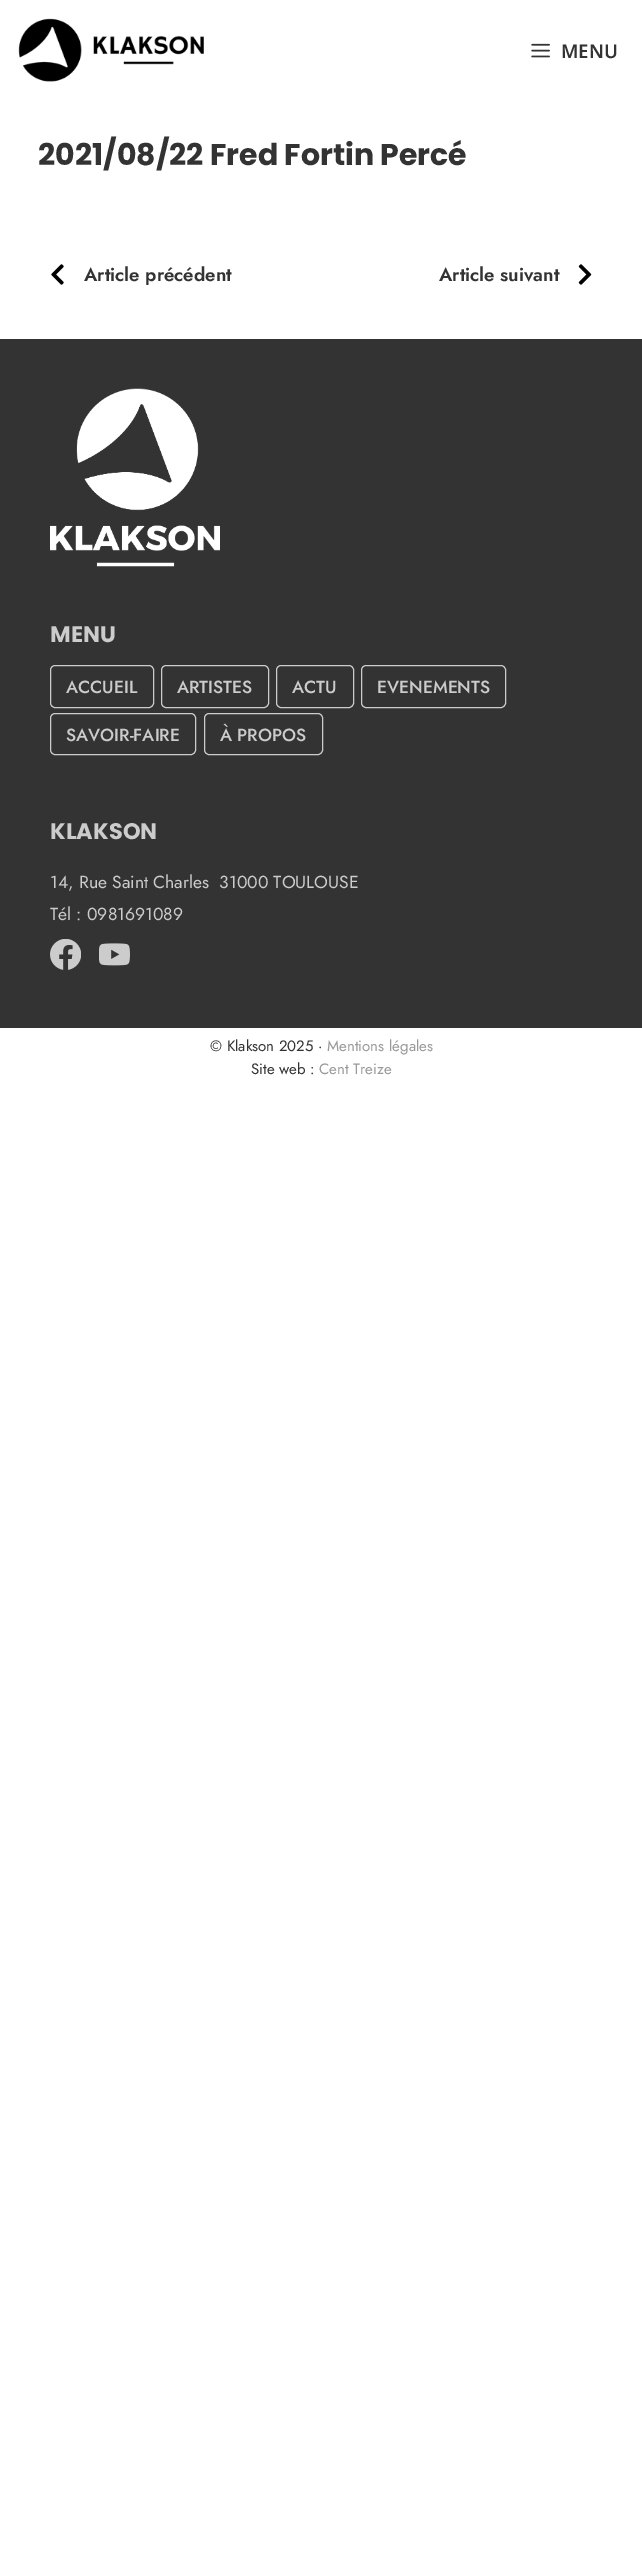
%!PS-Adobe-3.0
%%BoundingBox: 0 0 642 2558
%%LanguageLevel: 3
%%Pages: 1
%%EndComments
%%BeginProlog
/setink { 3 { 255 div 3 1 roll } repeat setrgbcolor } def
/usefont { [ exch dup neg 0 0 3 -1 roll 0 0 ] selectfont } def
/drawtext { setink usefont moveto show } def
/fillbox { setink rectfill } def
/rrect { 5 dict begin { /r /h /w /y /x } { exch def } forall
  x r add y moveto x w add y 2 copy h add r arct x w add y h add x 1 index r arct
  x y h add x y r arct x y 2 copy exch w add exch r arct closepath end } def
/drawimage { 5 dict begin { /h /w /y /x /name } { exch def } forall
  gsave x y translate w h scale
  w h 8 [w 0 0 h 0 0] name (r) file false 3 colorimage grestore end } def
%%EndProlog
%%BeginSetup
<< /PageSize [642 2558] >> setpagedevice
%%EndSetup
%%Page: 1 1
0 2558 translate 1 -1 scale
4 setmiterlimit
0 0 642 2558 255 255 255 fillbox
(assets/img1.rgb) 18 18 186 64 drawimage
(assets/img2.rgb) 531 43 19 15 drawimage
(MENU) 561 58 /NotoSans-SemiBold 18.75 51 51 51 drawtext
(2021/08/22 Fred Fortin Percé) 38 165 /Poppins-Bold 30 51 51 51 drawtext
(assets/img3.rgb) 51 264 13 21 drawimage
(Article précédent) 84 281 /Jost-SemiBold 18.75 51 51 51 drawtext
(Article suivant) 439 281 /Jost-SemiBold 18.75 51 51 51 drawtext
(assets/img4.rgb) 578 264 14 21 drawimage
0 339 642 689 51 51 51 fillbox
(assets/img5.rgb) 50 388 170 179 drawimage
(MENU) 50 642 /Poppins-Bold 22.5 204 204 204 drawtext
50.5 665.5 103 42 4.5 rrect stroke
(ACCUEIL) 66 693 /Jost-Medium 17.5 204 204 204 drawtext
161.5 665.5 107 42 4.5 rrect stroke
(ARTISTES) 177 693 /Jost-Medium 17.5 204 204 204 drawtext
276.5 665.5 77 42 4.5 rrect stroke
(ACTU) 292 693 /Jost-Medium 17.5 204 204 204 drawtext
361.5 665.5 144 42 4.5 rrect stroke
(EVENEMENTS) 377 693 /Jost-Medium 17.5 204 204 204 drawtext
50.5 713.5 145 41 4.5 rrect stroke
(SAVOIR-FAIRE) 66 741 /Jost-Medium 17.5 204 204 204 drawtext
204.5 713.5 118 41 4.5 rrect stroke
(À PROPOS) 220 741 /Jost-Medium 17.5 204 204 204 drawtext
(KLAKSON) 50 839 /Poppins-Bold 22.5 204 204 204 drawtext
(14, Rue Saint Charles  31000 TOULOUSE) 50 888 /Jost-Regular 17.5 204 204 204 drawtext
(Tél : 0981691089) 50 920 /Jost-Regular 17.5 204 204 204 drawtext
(assets/img6.rgb) 50 939 31 31 drawimage
(assets/img7.rgb) 99 943 31 23 drawimage
(© Klakson 2025 ·) 210 1051 /Jost-Regular 15 51 51 51 drawtext
(Mentions légales) 327 1051 /Jost-Regular 15 153 153 153 drawtext
(Site web :) 251 1074 /Jost-Regular 15 51 51 51 drawtext
(Cent Treize) 319 1074 /Jost-Regular 15 153 153 153 drawtext
showpage
%%EOF
